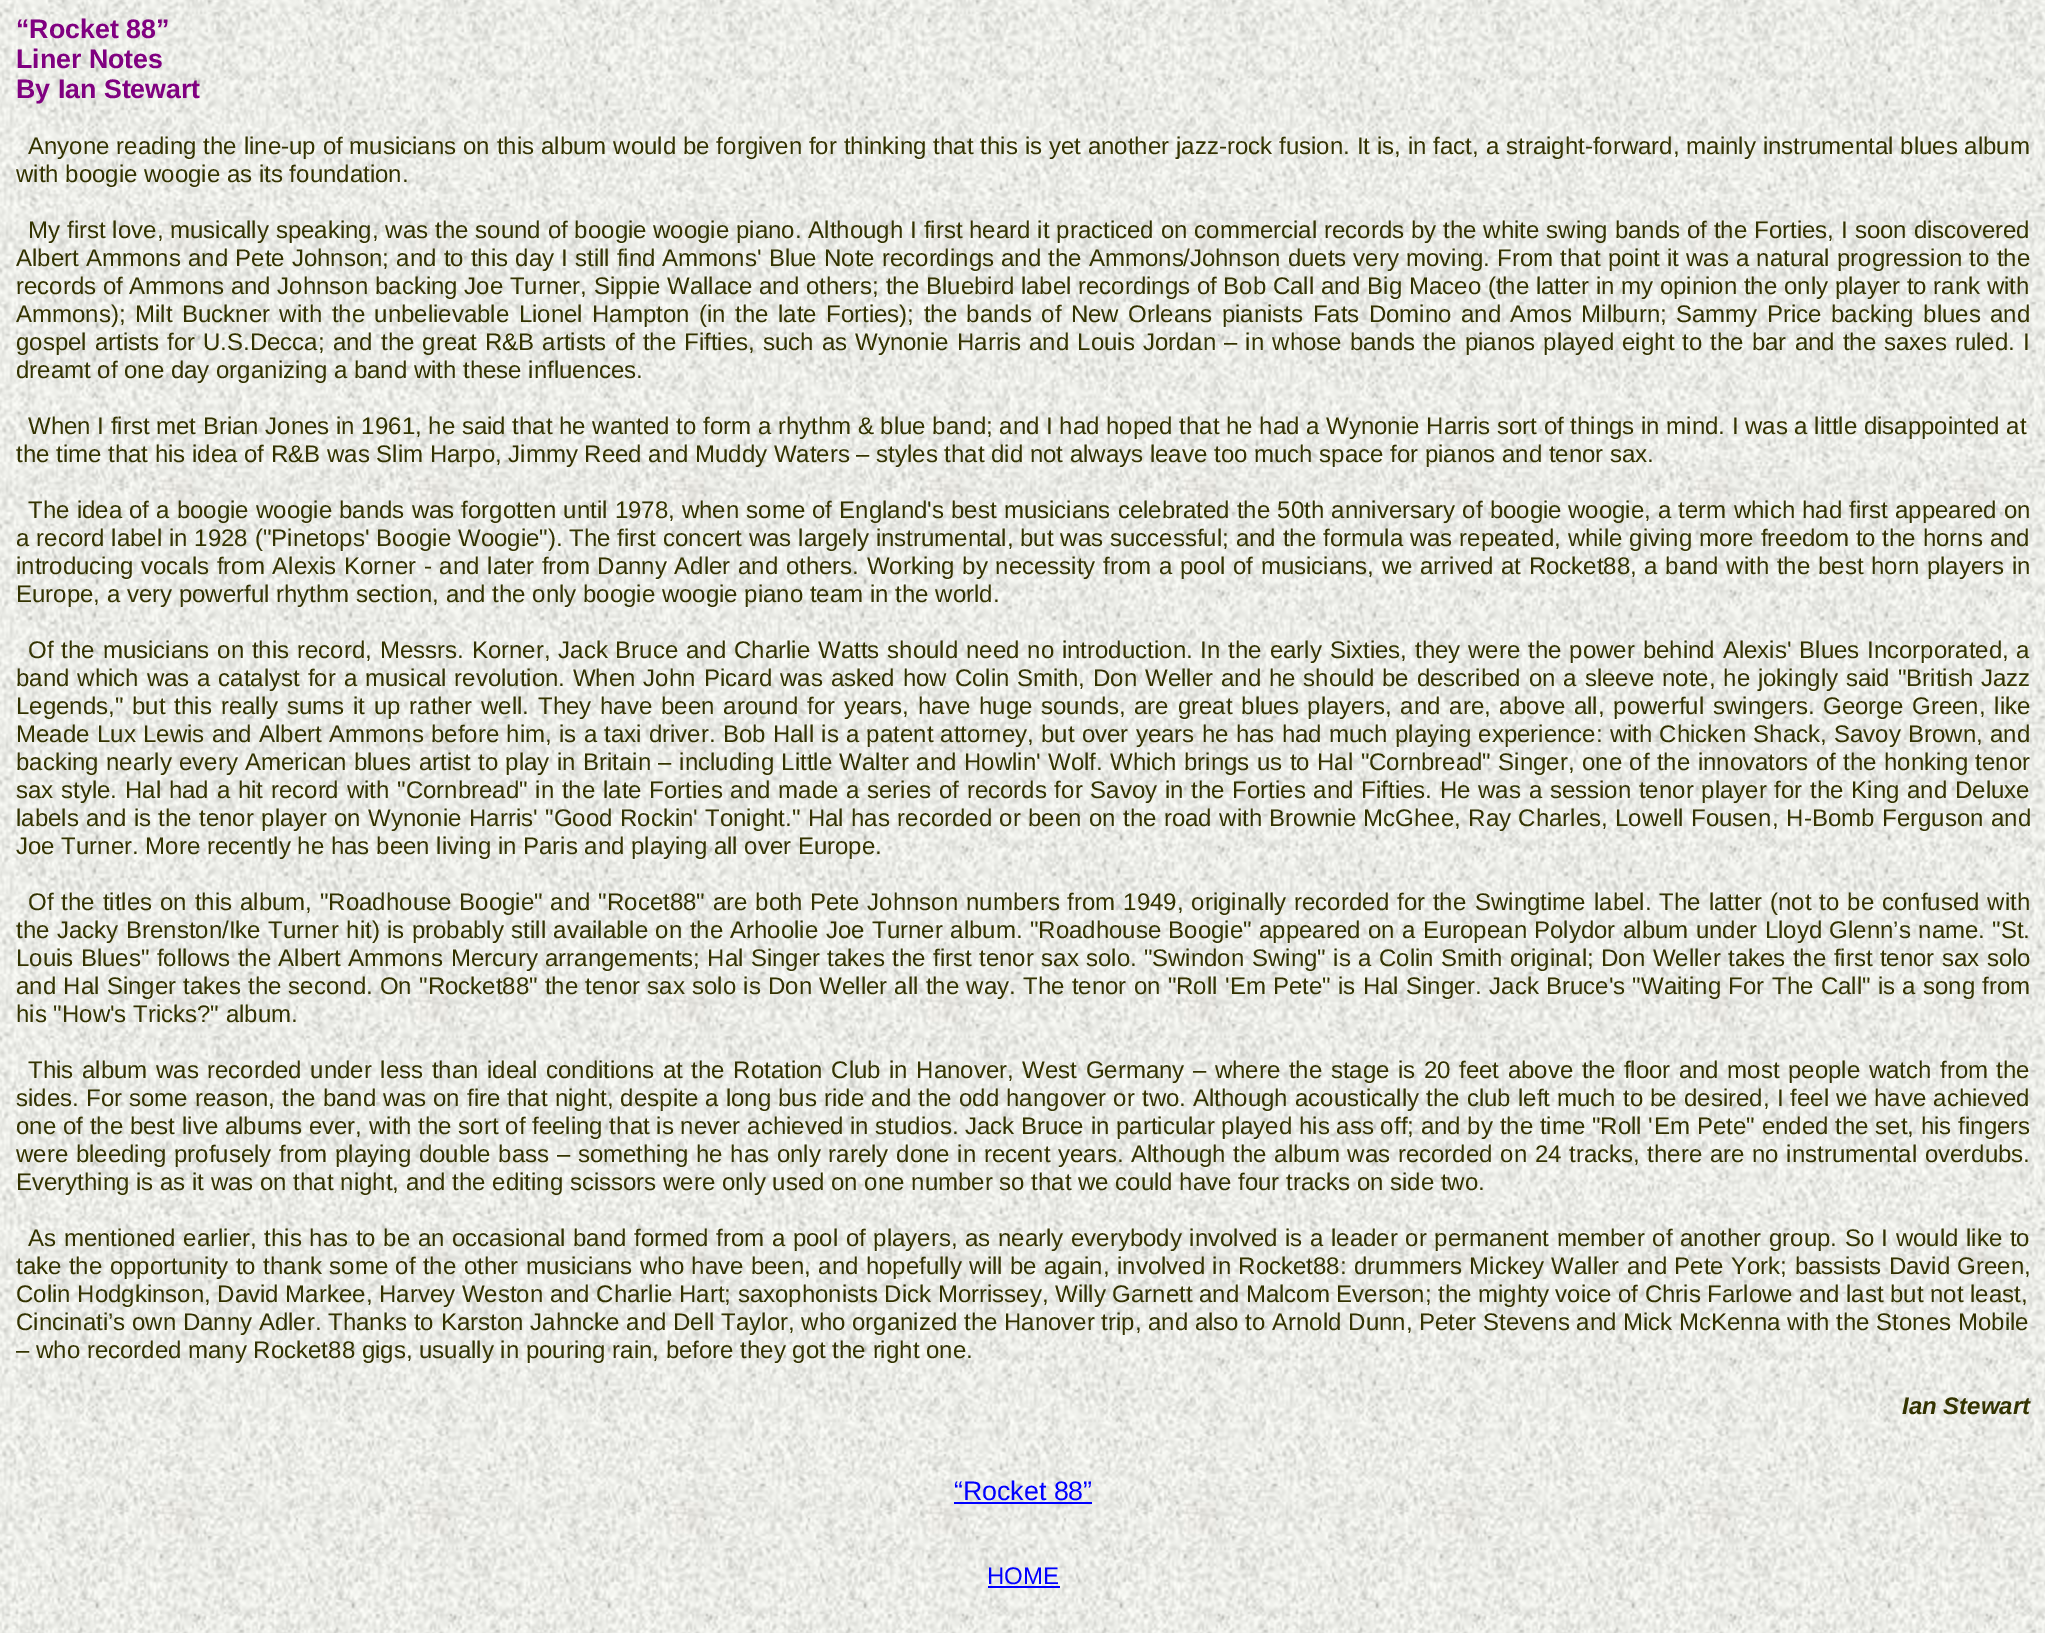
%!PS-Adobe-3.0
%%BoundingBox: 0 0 2045 1633
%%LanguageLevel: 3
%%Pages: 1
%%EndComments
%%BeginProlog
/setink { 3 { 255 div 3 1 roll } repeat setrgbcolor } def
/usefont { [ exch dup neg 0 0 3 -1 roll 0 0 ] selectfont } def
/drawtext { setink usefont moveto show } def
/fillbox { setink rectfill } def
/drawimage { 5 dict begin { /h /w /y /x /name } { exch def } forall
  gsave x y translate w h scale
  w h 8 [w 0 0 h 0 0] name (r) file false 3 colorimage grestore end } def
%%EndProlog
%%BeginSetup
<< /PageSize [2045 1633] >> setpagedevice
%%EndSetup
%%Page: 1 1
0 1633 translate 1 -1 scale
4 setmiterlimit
0 0 2045 1633 255 255 255 fillbox
(assets/img1.rgb) 0 0 2045 1633 drawimage
(“Rocket 88”) 16 38 /LiberationSans-Bold 26.75 128 0 128 drawtext
(Liner Notes) 16 68 /LiberationSans-Bold 26.75 128 0 128 drawtext
(By Ian Stewart) 16 98 /LiberationSans-Bold 26.75 128 0 128 drawtext
/LiberationSans-Regular 24 usefont
51 51 0 setink
28 154 moveto 0.25 0 32 (Anyone reading the line-up of musicians on this album would be forgiven for thinking that this is yet another jazz-rock fusion. It is, in fact, a straight-forward, mainly instrumental blues album) widthshow
(with boogie woogie as its foundation.) 16 182 /LiberationSans-Regular 24 51 51 0 drawtext
28 238 moveto 0.25 0 32 (My first love, musically speaking, was the sound of boogie) widthshow
(woogie) 653 238 /LiberationSans-Regular 24 51 51 0 drawtext
736 238 moveto 0.25 0 32 (piano. Although I first heard it practiced on commercial records by the white swing bands of the Forties, I soon discovered) widthshow
(Albert) 16 266 /LiberationSans-Regular 24 51 51 0 drawtext
(Ammons) 86 266 /LiberationSans-Regular 24 51 51 0 drawtext
188 266 moveto 0.5 0 32 (and Pete Johnson; and to this day I still find) widthshow
(Ammons) 662 266 /LiberationSans-Regular 24 51 51 0 drawtext
757 266 moveto 0.5 0 32 (' Blue Note recordings and the) widthshow
(Ammons) 1089 266 /LiberationSans-Regular 24 51 51 0 drawtext
1183 266 moveto 0.5 0 32 (/Johnson duets very moving. From that point it was a natural progression to the) widthshow
(records of Ammons and Johnson backing Joe Turner, Sippie Wallace and others; the Bluebird label recordings of Bob Call and Big) 16 294 /LiberationSans-Regular 24 51 51 0 drawtext
(Maceo \(the latter in my opinion the only player to rank with) 1409 294 /LiberationSans-Regular 24 51 51 0 drawtext
(Ammons) 16 322 /LiberationSans-Regular 24 51 51 0 drawtext
111 322 moveto 2.8 0 32 (\); Milt Buckner with the unbelievable Lionel Hampton \(in the late Forties\); the bands of New Orleans pianists Fats Domino and Amos Milburn; Sammy Price backing blues and) widthshow
16 350 moveto 1.4 0 32 (gospel artists for) widthshow
(U.S.Decca) 203 350 /LiberationSans-Regular 24 51 51 0 drawtext
318 350 moveto 1.4 0 32 (; and the great R&B artists of the Fifties, such as) widthshow
(Wynonie) 855 350 /LiberationSans-Regular 24 51 51 0 drawtext
957 350 moveto 1.4 0 32 (Harris and Louis Jordan – in whose bands the pianos played eight to the bar and the saxes ruled. I) widthshow
(dreamt of one day organizing a band with these influences.) 16 378 /LiberationSans-Regular 24 51 51 0 drawtext
(When I first met Brian Jones in 1961, he said that he wanted to form a rhythm & blue band; and I had hoped that he had a Wynonie Harris sort of things in mind. I was a little disappointed at) 28 434 /LiberationSans-Regular 24 51 51 0 drawtext
(the time that his idea of R&B was Slim Harpo, Jimmy Reed and Muddy Waters – styles that did not always leave too much space for pianos and tenor sax.) 16 462 /LiberationSans-Regular 24 51 51 0 drawtext
28 518 moveto 0.5 0 32 (The idea of a boogie) widthshow
(woogie) 256 518 /LiberationSans-Regular 24 51 51 0 drawtext
339 518 moveto 0.5 0 32 (bands was forgotten until 1978, when some of England's best musicians celebrated the 50th anniversary of boogie) widthshow
(woogie) 1568 518 /LiberationSans-Regular 24 51 51 0 drawtext
1644 518 moveto 0.5 0 32 (, a term which had first appeared on) widthshow
16 546 moveto 0.25 0 32 (a record label in 1928 \("Pinetops' Boogie) widthshow
(Woogie) 458 546 /LiberationSans-Regular 24 51 51 0 drawtext
539 546 moveto 0.25 0 32 ("\). The first concert was largely instrumental, but was successful; and the formula was repeated, while giving more freedom to the horns and) widthshow
16 574 moveto 1 0 32 (introducing vocals from Alexis Korner - and later from Danny Adler and others. Working by necessity from a pool of musicians, we arrived at Rocket88, a band with the best horn players in) widthshow
(Europe, a very powerful rhythm section, and the only boogie woogie piano team in the world.) 16 602 /LiberationSans-Regular 24 51 51 0 drawtext
28 658 moveto 1.25 0 32 (Of the musicians on this record, Messrs. Korner, Jack Bruce and Charlie Watts should need no introduction. In the early Sixties, they were the power behind Alexis' Blues Incorporated, a) widthshow
16 686 moveto 1.25 0 32 (band which was a catalyst for a musical revolution. When John) widthshow
(Picard) 704 686 /LiberationSans-Regular 24 51 51 0 drawtext
780 686 moveto 1.25 0 32 (was asked how Colin Smith, Don Weller and he should be described on a sleeve note, he jokingly said "British Jazz) widthshow
16 714 moveto 2.2 0 32 (Legends," but this really sums it up rather well. They have been around for years, have huge sounds, are great blues players, and are, above all, powerful swingers. George Green, like) widthshow
(Meade) 16 742 /LiberationSans-Regular 24 51 51 0 drawtext
(Lux) 97 742 /LiberationSans-Regular 24 51 51 0 drawtext
143 742 moveto 0.6 0 32 (Lewis and Albert) widthshow
(Ammons) 329 742 /LiberationSans-Regular 24 51 51 0 drawtext
431 742 moveto 0.6 0 32 (before him, is a taxi driver. Bob Hall is a patent attorney, but over years he has had much playing experience: with Chicken Shack, Savoy Brown, and) widthshow
16 770 moveto 0.75 0 32 (backing nearly every American blues artist to play in Britain – including Little Walter and) widthshow
(Howlin) 964 770 /LiberationSans-Regular 24 51 51 0 drawtext
1036 770 moveto 0.75 0 32 (' Wolf.) widthshow
1110 770 moveto 0.75 0 32 (Which brings us to Hal "Cornbread" Singer, one of the innovators of the honking tenor) widthshow
16 798 moveto 1 0 32 (sax style.) widthshow
125 798 moveto 1.1 0 32 (Hal had a hit record with "Cornbread" in the late Forties and made a series of records for Savoy in the Forties and Fifties. He was a session tenor player for the King and Deluxe) widthshow
16 826 moveto 0.75 0 32 (labels and is the tenor player on) widthshow
(Wynonie) 368 826 /LiberationSans-Regular 24 51 51 0 drawtext
469 826 moveto 1 0 32 (Harris' "Good) widthshow
(Rockin) 620 826 /LiberationSans-Regular 24 51 51 0 drawtext
693 826 moveto 0.75 0 32 (' Tonight." Hal has recorded or been on the road with Brownie McGhee, Ray Charles, Lowell) widthshow
(Fousen) 1691 826 /LiberationSans-Regular 24 51 51 0 drawtext
1772 826 moveto 1 0 32 (, H-Bomb Ferguson and) widthshow
(Joe Turner. More recently he has been living in Paris and playing all over Europe.) 16 854 /LiberationSans-Regular 24 51 51 0 drawtext
28 910 moveto 1.3 0 32 (Of the titles on this album, "Roadhouse Boogie" and "Rocet88" are both Pete Johnson numbers from 1949, originally recorded for the) widthshow
(Swingtime) 1475 910 /LiberationSans-Regular 24 51 51 0 drawtext
1594 910 moveto 1.3 0 32 (label. The latter \(not to be confused with) widthshow
16 938 moveto 1 0 32 (the Jacky) widthshow
(Brenston) 126 938 /LiberationSans-Regular 24 51 51 0 drawtext
222 938 moveto 0.75 0 32 (/Ike Turner hit\) is probably still available on the) widthshow
(Arhoolie) 730 938 /LiberationSans-Regular 24 51 51 0 drawtext
826 938 moveto 0.75 0 32 (Joe Turner album. "Roadhouse Boogie" appeared on a European) widthshow
(Polydor) 1534 938 /LiberationSans-Regular 24 51 51 0 drawtext
1623 938 moveto 0.75 0 32 (album under Lloyd Glenn’s name. "St.) widthshow
16 966 moveto 0.75 0 32 (Louis Blues" follows the Albert) widthshow
(Ammons) 348 966 /LiberationSans-Regular 24 51 51 0 drawtext
451 966 moveto 0.75 0 32 (Mercury arrangements; Hal Singer takes the first tenor sax solo. ") widthshow
(Swindon) 1152 966 /LiberationSans-Regular 24 51 51 0 drawtext
1252 966 moveto 0.75 0 32 (Swing" is a Colin Smith original; Don Weller takes the first tenor sax solo) widthshow
16 994 moveto 0.6 0 32 (and Hal Singer takes the second. On "Rocket88" the tenor sax solo is Don Weller all the way. The tenor on "Roll ') widthshow
(Em) 1230 994 /LiberationSans-Regular 24 51 51 0 drawtext
1273 994 moveto 0.6 0 32 (Pete" is Hal Singer. Jack Bruce's "Waiting) widthshow
(For) 1728 994 /LiberationSans-Regular 24 51 51 0 drawtext
1772 994 moveto 0.6 0 32 (The Call" is a song from) widthshow
(his "How's Tricks?" album.) 16 1022 /LiberationSans-Regular 24 51 51 0 drawtext
28 1078 moveto 1.9 0 32 (This album was recorded under less than ideal conditions at the Rotation Club in Hanover, West Germany – where the stage is 20 feet above the floor and most people watch from the) widthshow
16 1106 moveto 0.5 0 32 (sides. For some reason, the band was on fire that night, despite a long bus ride and the odd hangover or two. Although acoustically the club left much to be desired, I feel we have achieved) widthshow
16 1134 moveto 0.1 0 32 (one of the best live albums ever, with the sort of feeling that is never achieved in studios. Jack Bruce in particular played his ass off; and by the time "Roll ') widthshow
(Em) 1654 1134 /LiberationSans-Regular 24 51 51 0 drawtext
1697 1134 moveto 0.1 0 32 (Pete" ended the set, his fingers) widthshow
16 1162 moveto 1 0 32 (were bleeding profusely from playing double bass – something he has only rarely done in recent years. Although the album was recorded on 24 tracks, there are no instrumental overdubs.) widthshow
(Everything is as it was on that night, and the editing scissors were only used on one number so that we could have four tracks on side two.) 16 1190 /LiberationSans-Regular 24 51 51 0 drawtext
28 1246 moveto 0.95 0 32 (As mentioned earlier, this has to be an occasional band formed from a pool of players, as nearly everybody involved is a leader or permanent member of another group. So I would like to) widthshow
16 1274 moveto 0.75 0 32 (take the opportunity to thank some of the other musicians who have been, and hopefully will be again, involved in Rocket88: drummers Mickey Waller and Pete York; bassists David Green,) widthshow
(Colin Hodgkinson, David Markee, Harvey Weston and Charlie Hart; saxophonists Dick Morrissey, Willy Garnett and Malcom Everson; the mighty voice of Chris Farlowe and last but not least,) 16 1302 /LiberationSans-Regular 24 51 51 0 drawtext
(Cincinati’s own Danny Adler. Thanks to) 16 1330 /LiberationSans-Regular 24 51 51 0 drawtext
(Karston Jahncke and Dell Taylor, who organized the Hanover trip, and also to Arnold Dunn, Peter Stevens and Mick McKenna with the Stones Mobile) 441 1330 /LiberationSans-Regular 24 51 51 0 drawtext
(– who recorded many Rocket88 gigs, usually in pouring rain, before they got the right one.) 16 1358 /LiberationSans-Regular 24 51 51 0 drawtext
(Ian Stewart) 1902 1414 /LiberationSans-BoldItalic 24 51 51 0 drawtext
(“Rocket 88”) 954 1500 /LiberationSans-Regular 26.75 0 0 255 drawtext
954 1502 138 2 0 0 255 fillbox
(HOME) 987 1584 /LiberationSans-Regular 24 0 0 255 drawtext
988 1586 72 2 0 0 255 fillbox
showpage
%%EOF
